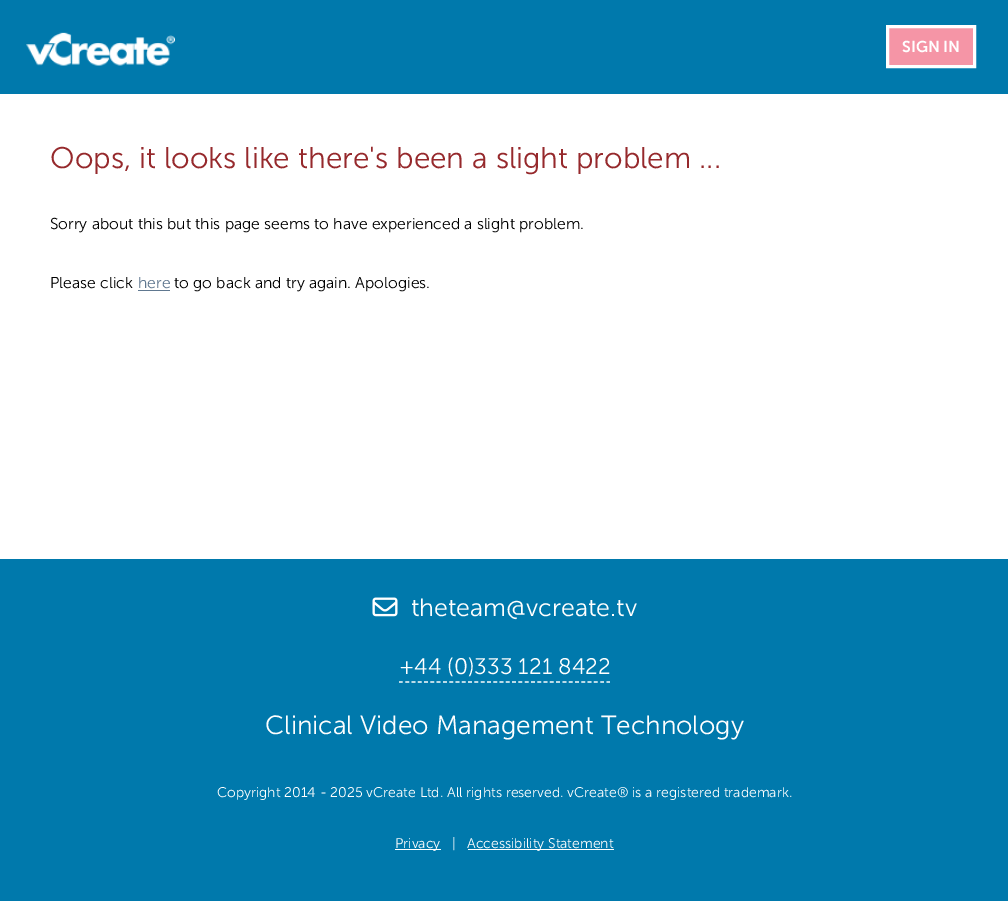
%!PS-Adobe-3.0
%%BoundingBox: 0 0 1008 901
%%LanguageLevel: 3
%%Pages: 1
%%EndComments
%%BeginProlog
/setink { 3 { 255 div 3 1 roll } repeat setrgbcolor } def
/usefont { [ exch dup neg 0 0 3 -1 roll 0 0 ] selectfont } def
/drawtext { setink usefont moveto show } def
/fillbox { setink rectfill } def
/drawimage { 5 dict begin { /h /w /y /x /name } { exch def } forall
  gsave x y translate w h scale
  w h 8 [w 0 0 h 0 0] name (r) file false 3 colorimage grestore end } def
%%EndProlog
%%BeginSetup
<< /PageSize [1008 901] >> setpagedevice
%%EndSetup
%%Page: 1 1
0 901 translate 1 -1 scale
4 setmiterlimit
0 0 1008 901 255 255 255 fillbox
0 0 1008 94 0 121 172 fillbox
(assets/img1.rgb) 26 32 149 34 drawimage
245 149 166 setink
887.5 26.5 moveto 974.5 26.5 lineto 974.5 66.5 lineto 887.5 66.5 lineto closepath gsave fill grestore
255 255 255 setink
3 setlinewidth
stroke
(SIGN IN) 902 52 /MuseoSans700-SemiBold 15.75 255 255 255 drawtext
(Oops, it looks like there's been a slight problem ...) 50 168 /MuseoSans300-Light 29.75 150 41 44 drawtext
(Sorry about this but this page seems to have experienced a slight problem.) 50 229 /MuseoSans300-Light 15.75 0 0 0 drawtext
(Please click) 50 288 /MuseoSans300-Light 15.75 0 0 0 drawtext
(here) 138 288 /MuseoSans300-Light 15.75 96 120 144 drawtext
138 290 32 1 96 120 144 fillbox
(to go back and try again. Apologies.) 174 288 /MuseoSans300-Light 15.75 0 0 0 drawtext
0 559 1008 342 0 121 172 fillbox
(assets/img2.rgb) 372 597 26 20 drawimage
(theteam@vcreate.tv) 411 616 /MuseoSans300-Light 25 255 255 255 drawtext
(+44 \(0\)333 121 8422) 399 674 /MuseoSans300-Light 22.5 255 255 255 drawtext
1.2 setlinewidth
[3.75 2.54] 0 setdash
399 682 moveto 610 682 lineto stroke
(Clinical Video Management Technology) 265 734 /MuseoSans300-Light 26.25 255 255 255 drawtext
(Copyright 2014 - 2025 vCreate Ltd. All rights reserved. vCreate® is a registered trademark.) 217 797 /MuseoSans300-Light 14 255 255 255 drawtext
395 849 46 1 255 255 255 fillbox
(Privacy) 395 848 /MuseoSans300-Light 14 255 255 255 drawtext
(|) 452 848 /MuseoSans300-Light 14 255 255 255 drawtext
468 849 146 1 255 255 255 fillbox
(Accessibility Statement) 467 848 /MuseoSans300-Light 14 255 255 255 drawtext
showpage
%%EOF
